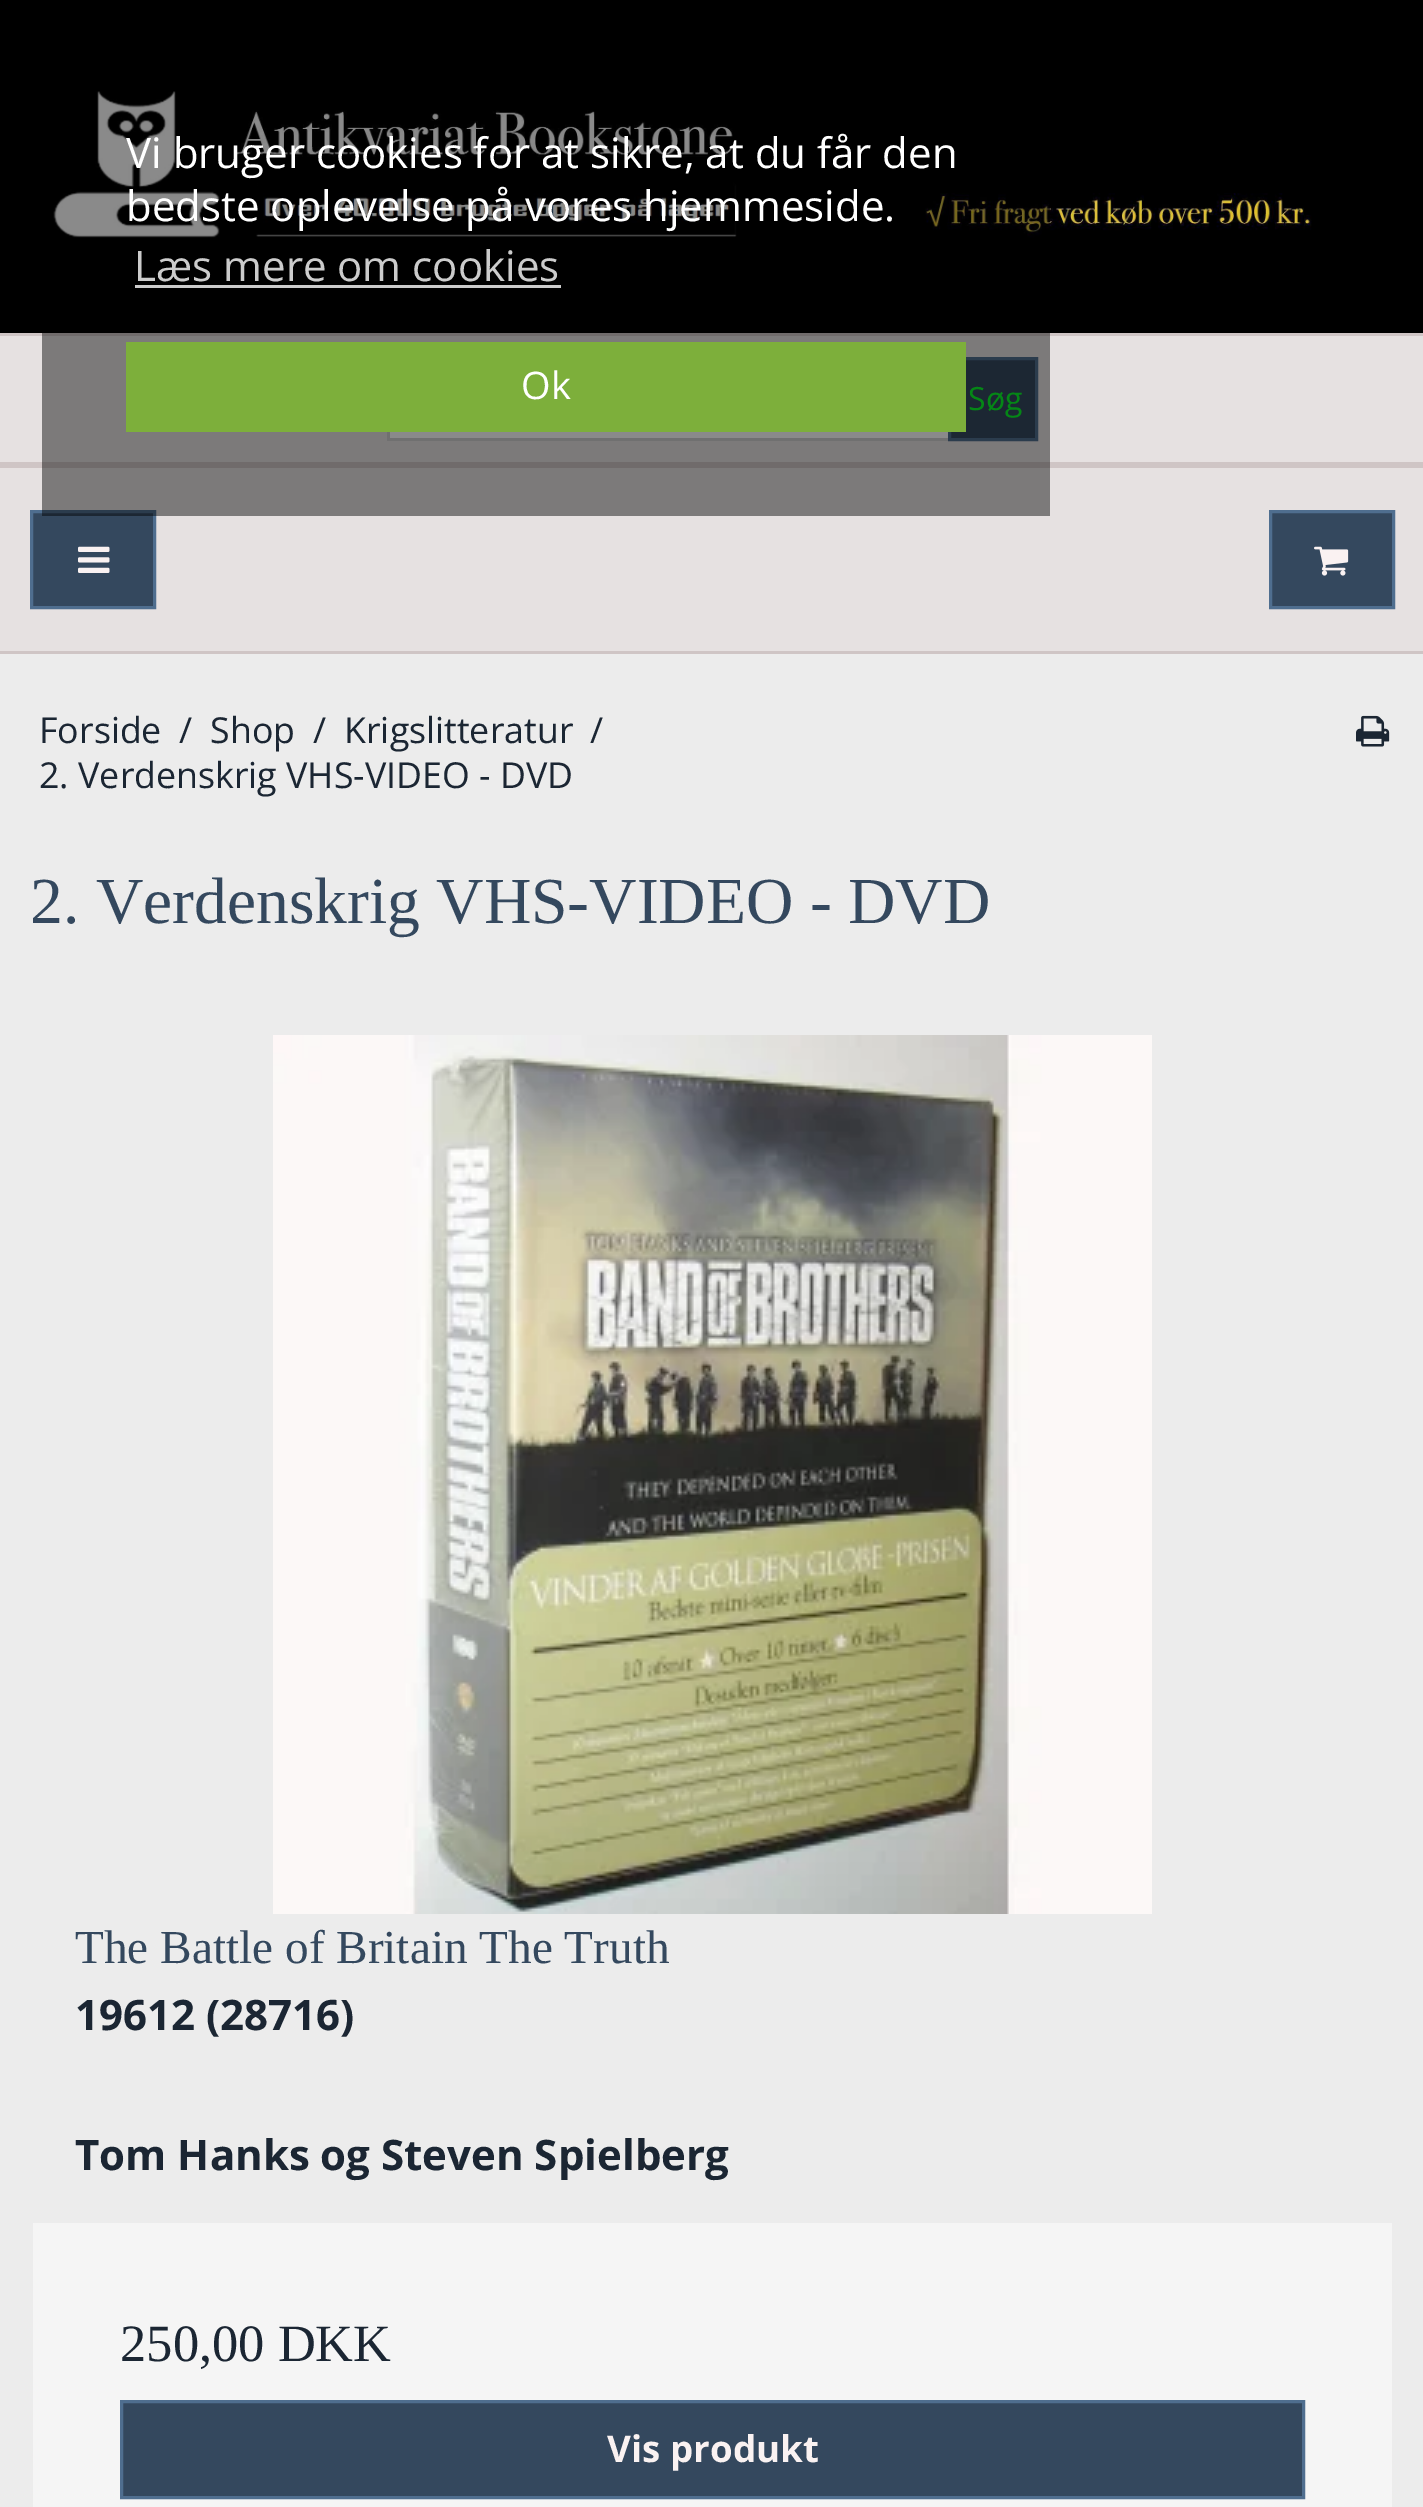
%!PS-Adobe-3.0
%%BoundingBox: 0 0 1423 2507
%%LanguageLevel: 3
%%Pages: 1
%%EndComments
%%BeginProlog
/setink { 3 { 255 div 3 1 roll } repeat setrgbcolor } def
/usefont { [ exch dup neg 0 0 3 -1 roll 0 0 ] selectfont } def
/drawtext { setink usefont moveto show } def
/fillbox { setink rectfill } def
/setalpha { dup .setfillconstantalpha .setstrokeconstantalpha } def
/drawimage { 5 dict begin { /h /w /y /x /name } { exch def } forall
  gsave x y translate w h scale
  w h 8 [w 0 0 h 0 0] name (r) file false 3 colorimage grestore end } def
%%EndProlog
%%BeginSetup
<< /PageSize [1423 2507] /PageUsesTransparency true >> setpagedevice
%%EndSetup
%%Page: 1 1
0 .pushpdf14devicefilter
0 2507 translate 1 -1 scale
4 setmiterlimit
0 0 1423 2507 236 236 236 fillbox
0 0 1423 333 0 0 0 fillbox
(assets/img1.rgb) 53 91 1259 147 drawimage
0 336 1423 126 230 225 225 fillbox
0 333 1423 3 207 197 197 fillbox
0 462 1423 6 207 197 197 fillbox
387 438 564 3 207 207 207 fillbox
52 72 94 setink
949.5 358.5 moveto 1036.5 358.5 lineto 1036.5 439.5 lineto 949.5 439.5 lineto closepath gsave fill grestore
79 110 143 setink
3 setlinewidth
stroke
(Søg) 968 410 /OpenSans-Regular 32 8 250 40 drawtext
390 432 558 6 255 255 255 fillbox
387 432 3 9 207 207 207 fillbox
0 468 1423 183 230 225 225 fillbox
52 72 94 setink
31.5 511.5 moveto 154.5 511.5 lineto 154.5 607.5 lineto 31.5 607.5 lineto closepath gsave fill grestore
79 110 143 setink
stroke
0.46 setalpha
42 91 1008 425 0 0 0 fillbox
1 setalpha
(Vi bruger cookies for at sikre, at du får den) 126 168 /OpenSans-Regular 42 255 255 255 drawtext
(bedste oplevelse på vores hjemmeside.) 126 221 /OpenSans-Regular 42 255 255 255 drawtext
(Læs mere om cookies) 134 281 /OpenSans-Regular 42 204 204 204 drawtext
135 285 426 3 204 204 204 fillbox
126 342 840 90 125 175 59 fillbox
(Ok) 521 399 /OpenSans-Regular 38 255 255 255 drawtext
0 651 1423 3 207 197 197 fillbox
(assets/img2.rgb) 78 546 32 27 drawimage
52 72 94 setink
1270.5 511.5 moveto 1393.5 511.5 lineto 1393.5 607.5 lineto 1270.5 607.5 lineto closepath gsave fill grestore
79 110 143 setink
stroke
(assets/img3.rgb) 1314 546 35 30 drawimage
(Forside) 39 743 /OpenSans-Regular 35.75 27 38 51 drawtext
(/) 179 743 /OpenSans-Regular 35.75 27 38 51 drawtext
(Shop) 210 743 /OpenSans-Regular 35.75 27 38 51 drawtext
(/) 313 743 /OpenSans-Regular 35.75 27 38 51 drawtext
(Krigslitteratur) 344 743 /OpenSans-Regular 35.75 27 38 51 drawtext
(/) 590 743 /OpenSans-Regular 35.75 27 38 51 drawtext
(2. Verdenskrig VHS-VIDEO - DVD) 39 788 /OpenSans-Regular 35.75 27 38 51 drawtext
(assets/img4.rgb) 1356 715 34 32 drawimage
(2. Verdenskrig VHS-VIDEO - DVD) 30 923 /LiberationSerif-Regular 65.6 52 72 94 drawtext
(assets/img5.rgb) 273 1035 879 879 drawimage
(The Battle of Britain The Truth) 75 1963 /LiberationSerif-Regular 47.25 52 72 94 drawtext
(19612 \(28716\)) 75 2030 /OpenSans-Bold 42 27 38 51 drawtext
(Tom Hanks og Steven Spielberg) 75 2170 /OpenSans-Bold 42 27 38 51 drawtext
33 2223 1359 284 245 245 245 fillbox
(250,00 DKK) 120 2361 /LiberationSerif-Regular 52.5 27 38 51 drawtext
52 72 94 setink
121.5 2401.5 moveto 1303.5 2401.5 lineto 1303.5 2497.5 lineto 121.5 2497.5 lineto closepath gsave fill grestore
79 110 143 setink
stroke
(Vis produkt) 607 2462 /OpenSans-Bold 36.75 250 242 242 drawtext
.poppdf14devicefilter showpage
%%EOF
